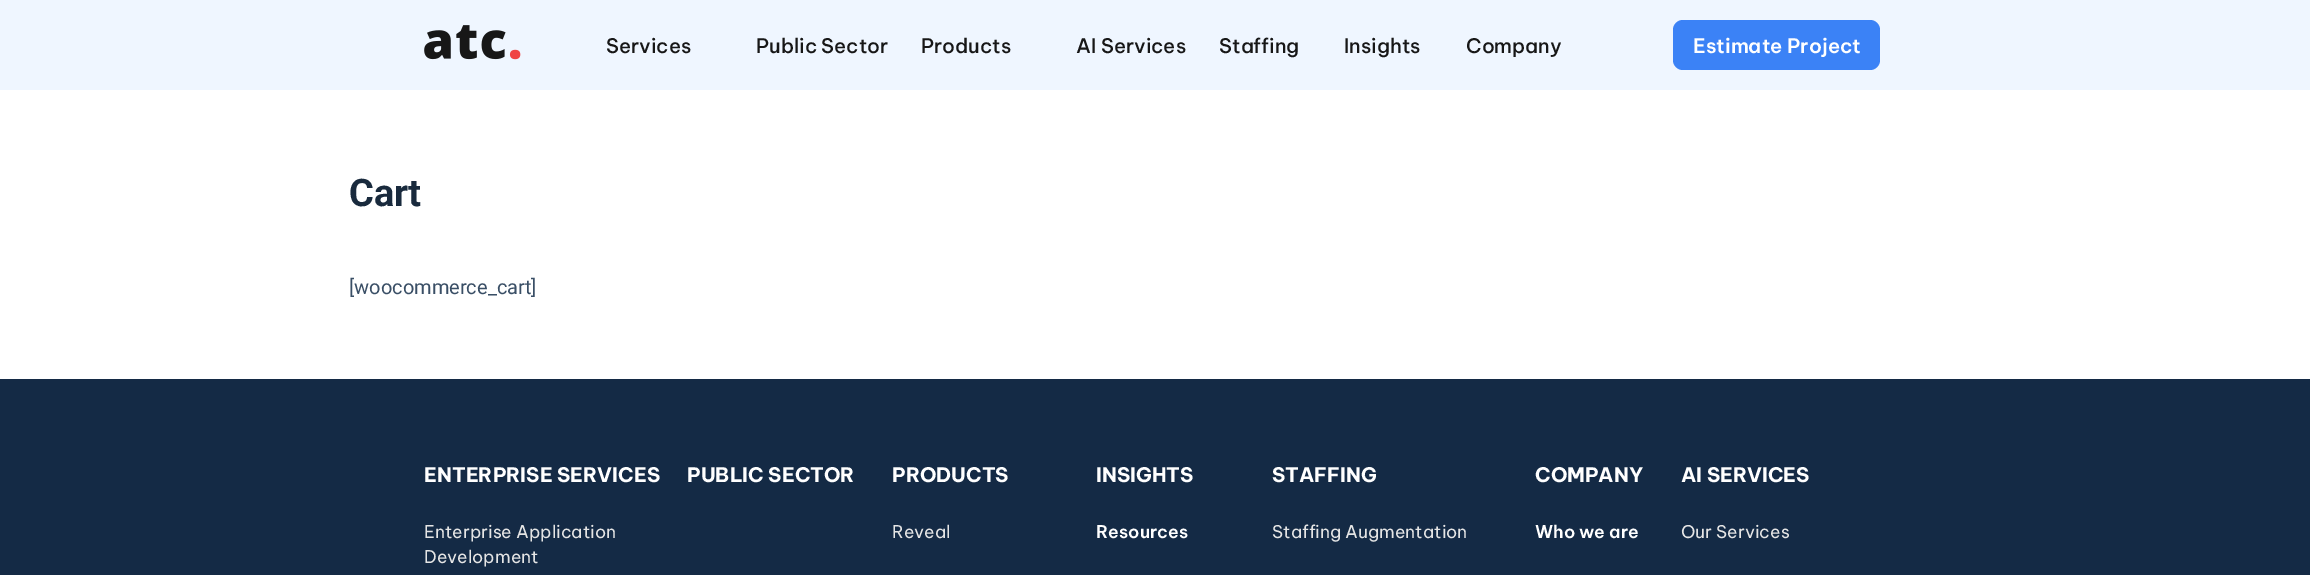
%!PS-Adobe-3.0
%%BoundingBox: 0 0 2310 575
%%LanguageLevel: 3
%%Pages: 1
%%EndComments
%%BeginProlog
/setink { 3 { 255 div 3 1 roll } repeat setrgbcolor } def
/usefont { [ exch dup neg 0 0 3 -1 roll 0 0 ] selectfont } def
/drawtext { setink usefont moveto show } def
/fillbox { setink rectfill } def
/rrect { 5 dict begin { /r /h /w /y /x } { exch def } forall
  x r add y moveto x w add y 2 copy h add r arct x w add y h add x 1 index r arct
  x y h add x y r arct x y 2 copy exch w add exch r arct closepath end } def
/drawimage { 5 dict begin { /h /w /y /x /name } { exch def } forall
  gsave x y translate w h scale
  w h 8 [w 0 0 h 0 0] name (r) file false 3 colorimage grestore end } def
%%EndProlog
%%BeginSetup
<< /PageSize [2310 575] >> setpagedevice
%%EndSetup
%%Page: 1 1
0 575 translate 1 -1 scale
4 setmiterlimit
0 0 2310 575 255 255 255 fillbox
0 0 2310 90 239 246 255 fillbox
(assets/img1.rgb) 424 25 97 35 drawimage
(Services) 606 53 /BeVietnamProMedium-Medium 20 23 23 23 drawtext
(Public Sector) 756 53 /BeVietnamProMedium-Medium 20 23 23 23 drawtext
(Products) 921 53 /BeVietnamProMedium-Medium 20 23 23 23 drawtext
(AI Services) 1076 53 /BeVietnamProMedium-Medium 20 23 23 23 drawtext
(Staffing) 1219 53 /BeVietnamProMedium-Medium 20 23 23 23 drawtext
(Insights) 1344 53 /BeVietnamProMedium-Medium 20 23 23 23 drawtext
(Company) 1466 53 /BeVietnamProMedium-Medium 20 23 23 23 drawtext
59 130 246 setink
1673 20 207 50 10 rrect fill
(Estimate Project) 1693 53 /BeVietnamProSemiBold-SemiBold 20 255 255 255 drawtext
(Cart) 349 206 /Roboto-Bold 38 25 42 61 drawtext
([woocommerce_cart]) 349 294 /Roboto-Regular 20 58 79 102 drawtext
0 379 2310 196 20 42 69 fillbox
(ENTERPRISE SERVICES) 424 482 /BeVietnamPro-Bold 20 255 255 255 drawtext
(Enterprise Application) 424 538 /BeVietnamPro-Regular 17.5 229 229 229 drawtext
(Development) 424 563 /BeVietnamPro-Regular 17.5 229 229 229 drawtext
(PUBLIC SECTOR) 687 482 /BeVietnamPro-Bold 20 255 255 255 drawtext
(PRODUCTS) 892 482 /BeVietnamPro-Bold 20 255 255 255 drawtext
(Reveal) 892 538 /BeVietnamPro-Regular 17.5 229 229 229 drawtext
(INSIGHTS) 1096 482 /BeVietnamPro-Bold 20 255 255 255 drawtext
(Resources) 1096 538 /BeVietnamProSemiBold-SemiBold 17.5 255 255 255 drawtext
(STAFFING) 1272 482 /BeVietnamPro-Bold 20 255 255 255 drawtext
(Staffing Augmentation) 1272 538 /BeVietnamPro-Regular 17.5 229 229 229 drawtext
(COMPANY) 1535 482 /BeVietnamPro-Bold 20 255 255 255 drawtext
(Who we are) 1535 538 /BeVietnamProSemiBold-SemiBold 17.5 255 255 255 drawtext
(AI SERVICES) 1681 482 /BeVietnamPro-Bold 20 255 255 255 drawtext
(Our Services) 1681 538 /BeVietnamPro-Regular 17.5 229 229 229 drawtext
showpage
%%EOF
